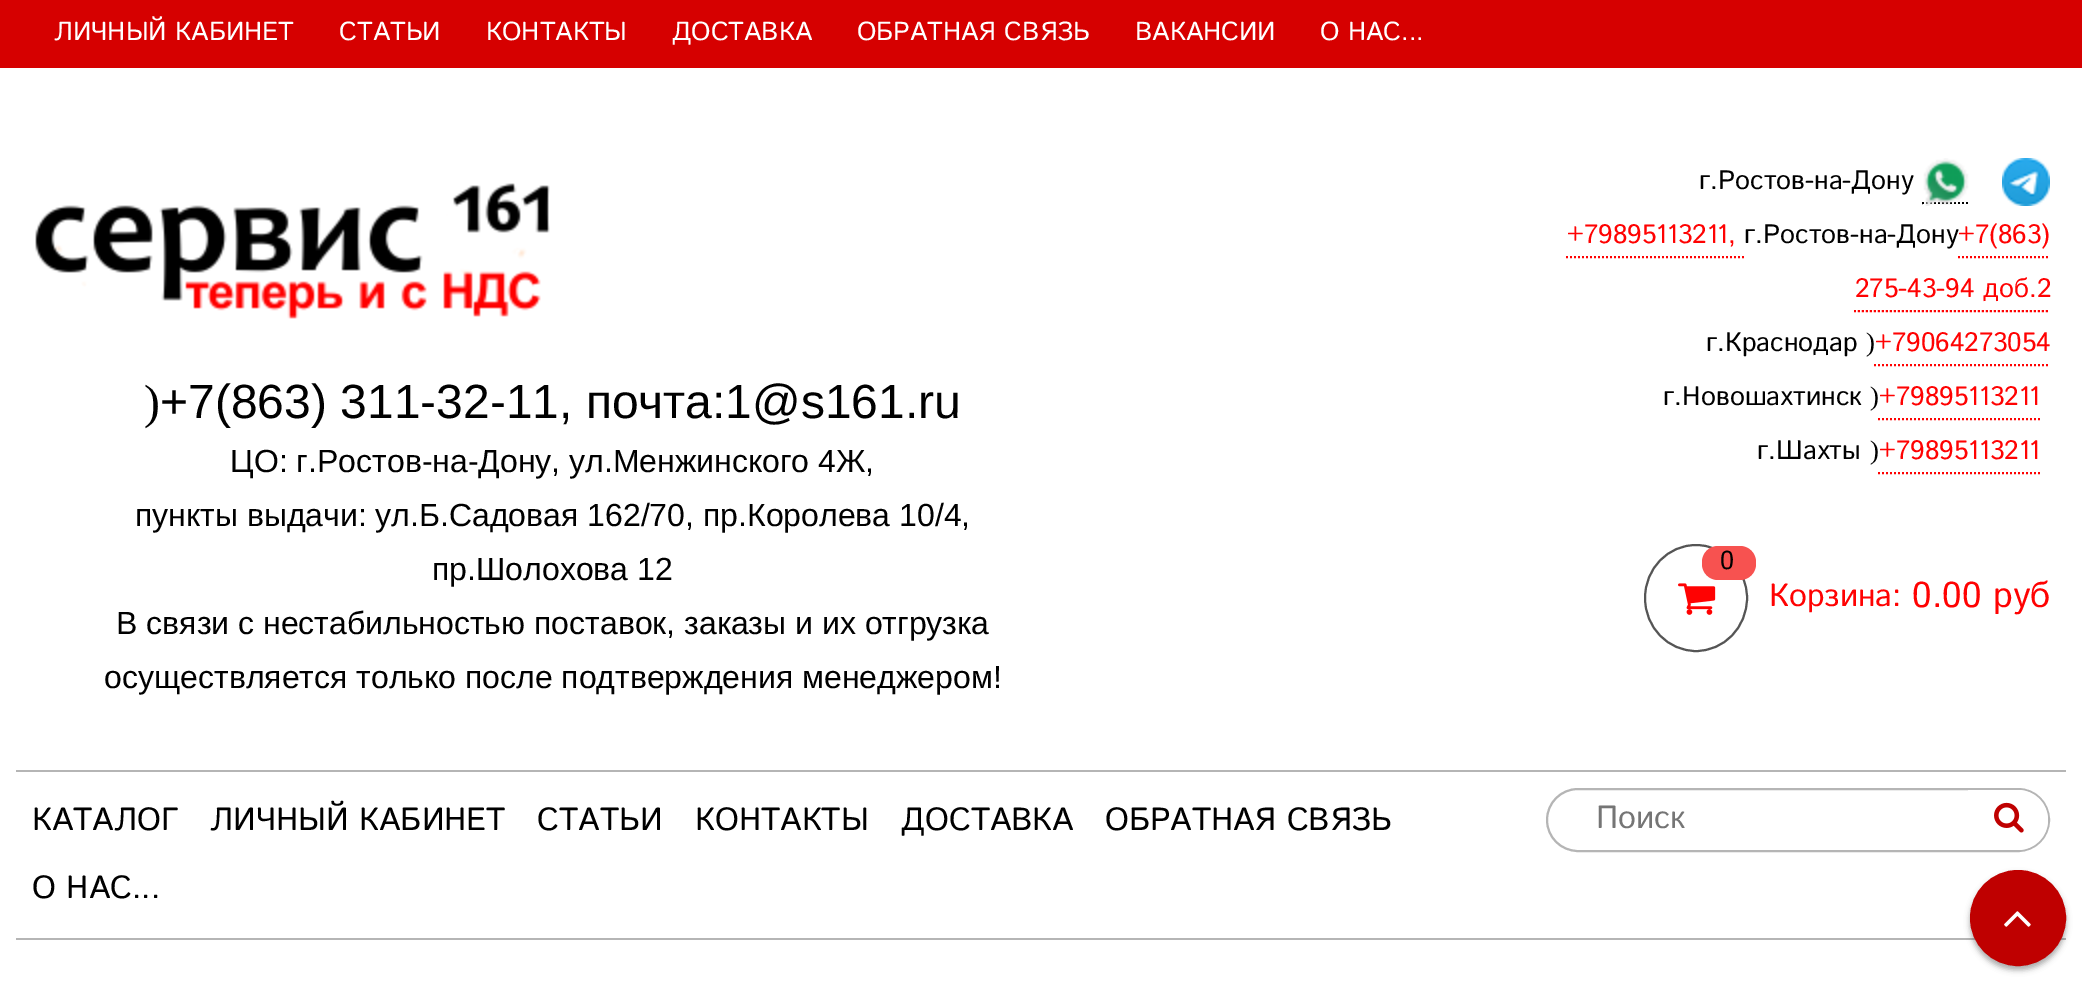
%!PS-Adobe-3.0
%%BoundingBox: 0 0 2082 982
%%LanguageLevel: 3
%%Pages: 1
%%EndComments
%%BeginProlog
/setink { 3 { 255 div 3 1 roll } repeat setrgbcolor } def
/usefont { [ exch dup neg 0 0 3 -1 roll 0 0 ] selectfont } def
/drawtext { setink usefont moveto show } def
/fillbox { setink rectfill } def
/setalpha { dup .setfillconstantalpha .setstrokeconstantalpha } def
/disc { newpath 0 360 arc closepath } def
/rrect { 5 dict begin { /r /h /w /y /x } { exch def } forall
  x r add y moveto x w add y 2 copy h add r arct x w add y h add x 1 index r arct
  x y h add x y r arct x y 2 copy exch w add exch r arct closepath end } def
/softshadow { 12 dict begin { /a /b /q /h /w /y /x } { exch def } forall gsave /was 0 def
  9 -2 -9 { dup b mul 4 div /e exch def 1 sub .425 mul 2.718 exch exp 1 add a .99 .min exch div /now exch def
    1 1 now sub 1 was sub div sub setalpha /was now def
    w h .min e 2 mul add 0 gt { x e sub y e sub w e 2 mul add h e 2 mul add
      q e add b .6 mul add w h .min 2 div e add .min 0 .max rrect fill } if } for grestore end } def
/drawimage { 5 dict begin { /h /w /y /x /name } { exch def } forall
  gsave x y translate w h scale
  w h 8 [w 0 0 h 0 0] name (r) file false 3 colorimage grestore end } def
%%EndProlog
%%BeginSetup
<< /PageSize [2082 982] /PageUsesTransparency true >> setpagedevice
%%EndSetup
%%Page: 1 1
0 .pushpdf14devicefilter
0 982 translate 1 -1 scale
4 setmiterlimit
0 0 2082 982 255 255 255 fillbox
0 0 2082 68 214 0 0 fillbox
(ЛИЧНЫЙ КАБИНЕТ) 54 40 /IstokWeb-Regular 26 255 255 255 drawtext
(СТАТЬИ) 339 40 /IstokWeb-Regular 26 255 255 255 drawtext
(КОНТАКТЫ) 486 40 /IstokWeb-Regular 26 255 255 255 drawtext
(ДОСТАВКА) 672 40 /IstokWeb-Regular 26 255 255 255 drawtext
(ОБРАТНАЯ СВЯЗЬ) 857 40 /IstokWeb-Regular 26 255 255 255 drawtext
(ВАКАНСИИ) 1135 40 /IstokWeb-Regular 26 255 255 255 drawtext
(О НАС...) 1320 40 /IstokWeb-Regular 26 255 255 255 drawtext
(assets/img1.rgb) 35 183 515 136 drawimage
(\)) 144 418 /LiberationSerif-Regular 48 0 0 0 drawtext
(+7\(863\) 311-32-11, почта:1@s161.ru) 160 418 /LiberationSans-Regular 48 0 0 0 drawtext
(ЦО: г.Ростов-на-Дону, ул.Менжинского 4Ж,) 230 472 /LiberationSans-Regular 32 0 0 0 drawtext
(пункты выдачи: ул.Б.Садовая 162/70, пр.Королева 10/4,) 135 526 /LiberationSans-Regular 32 0 0 0 drawtext
(пр.Шолохова 12) 432 580 /LiberationSans-Regular 32 0 0 0 drawtext
(В связи с нестабильностью поставок, заказы и их отгрузка) 116 634 /LiberationSans-Regular 32 0 0 0 drawtext
(осуществляется только после подтверждения менеджером!) 104 688 /LiberationSans-Regular 32 0 0 0 drawtext
(г.Ростов-на-Дону) 1699 189 /IstokWeb-Regular 26.75 0 0 0 drawtext
2 setlinewidth
[2 2] 0 setdash
1922 203 moveto 1970 203 lineto stroke
(assets/img2.rgb) 1923 158 46 48 drawimage
(assets/img3.rgb) 2002 158 48 48 drawimage
(+79895113211,) 1567 243 /IstokWeb-Regular 26.75 255 2 2 drawtext
1566 257 moveto 1744 257 lineto stroke
(г.Ростов-на-Дону) 1744 243 /IstokWeb-Regular 26.75 0 0 0 drawtext
(+7\(863\)) 1958 243 /IstokWeb-Regular 26.75 255 2 2 drawtext
1958 257 moveto 2050 257 lineto stroke
(275-43-94 доб.2) 1855 297 /IstokWeb-Regular 26.75 255 2 2 drawtext
1854 311 moveto 2050 311 lineto stroke
(г.Краснодар) 1706 351 /IstokWeb-Regular 26.75 0 0 0 drawtext
(\)) 1866 351 /LiberationSerif-Regular 26.75 0 0 0 drawtext
255 2 2 setink
1874 365 moveto 2050 365 lineto stroke
(+79064273054) 1875 351 /IstokWeb-Regular 26.75 255 2 2 drawtext
(г.Новошахтинск) 1663 405 /IstokWeb-Regular 26.75 0 0 0 drawtext
(\)) 1870 405 /LiberationSerif-Regular 26.75 0 0 0 drawtext
255 2 2 setink
1878 419 moveto 2040 419 lineto stroke
(+79895113211) 1879 405 /IstokWeb-Regular 26.75 255 2 2 drawtext
(г.Шахты) 1757 459 /IstokWeb-Regular 26.75 0 0 0 drawtext
(\)) 1870 459 /LiberationSerif-Regular 26.75 0 0 0 drawtext
255 2 2 setink
1878 473 moveto 2040 473 lineto stroke
(+79895113211) 1879 459 /IstokWeb-Regular 26.75 255 2 2 drawtext
85 85 85 setink
[] 0 setdash
1696 545 moveto 1724 545 1747 568.5 1747 598 curveto 1747 627.5 1724 651 1696 651 curveto 1668 651 1645 627.5 1645 598 curveto 1645 568.5 1668 545 1696 545 curveto closepath stroke
247 82 80 setink
1702 546 54 34 16 rrect fill
(0) 1720 569 /IstokWeb-Regular 26 0 0 0 drawtext
(assets/img4.rgb) 1678 583 38 32 drawimage
(Корзина:) 1769 606 /IstokWeb-Regular 32 255 2 2 drawtext
(0.00 руб) 1912 607 /IstokWeb-Regular 36 255 2 2 drawtext
16 770 2050 2 181 181 181 fillbox
16 938 2050 2 181 181 181 fillbox
(КАТАЛОГ) 32 830 /IstokWeb-Regular 32 0 0 0 drawtext
(ЛИЧНЫЙ КАБИНЕТ) 210 830 /IstokWeb-Regular 32 0 0 0 drawtext
(СТАТЬИ) 537 830 /IstokWeb-Regular 32 0 0 0 drawtext
(КОНТАКТЫ) 695 830 /IstokWeb-Regular 32 0 0 0 drawtext
(ДОСТАВКА) 901 830 /IstokWeb-Regular 32 0 0 0 drawtext
(ОБРАТНАЯ СВЯЗЬ) 1105 830 /IstokWeb-Regular 32 0 0 0 drawtext
(О НАС...) 32 898 /IstokWeb-Regular 32 0 0 0 drawtext
181 181 181 setink
1547 789 502 62 31 rrect stroke
(Поиск) 1596 828 /IstokWeb-Regular 32 117 117 117 drawtext
255 255 255 setink
1968 790 moveto 2018 790 lineto 2034.5 790 2048 803.5 2048 820 curveto 2048 836.5 2034.5 850 2018 850 curveto 1968 850 lineto closepath fill
(assets/img5.rgb) 1994 802 30 31 drawimage
51 51 51 setink
1970 874 96 96 48 3 0.42 softshadow
191 0 0 setink
2018 918 46 disc gsave fill grestore
4 setlinewidth
stroke
(assets/img6.rgb) 2004 911 27 16 drawimage
.poppdf14devicefilter showpage
%%EOF
